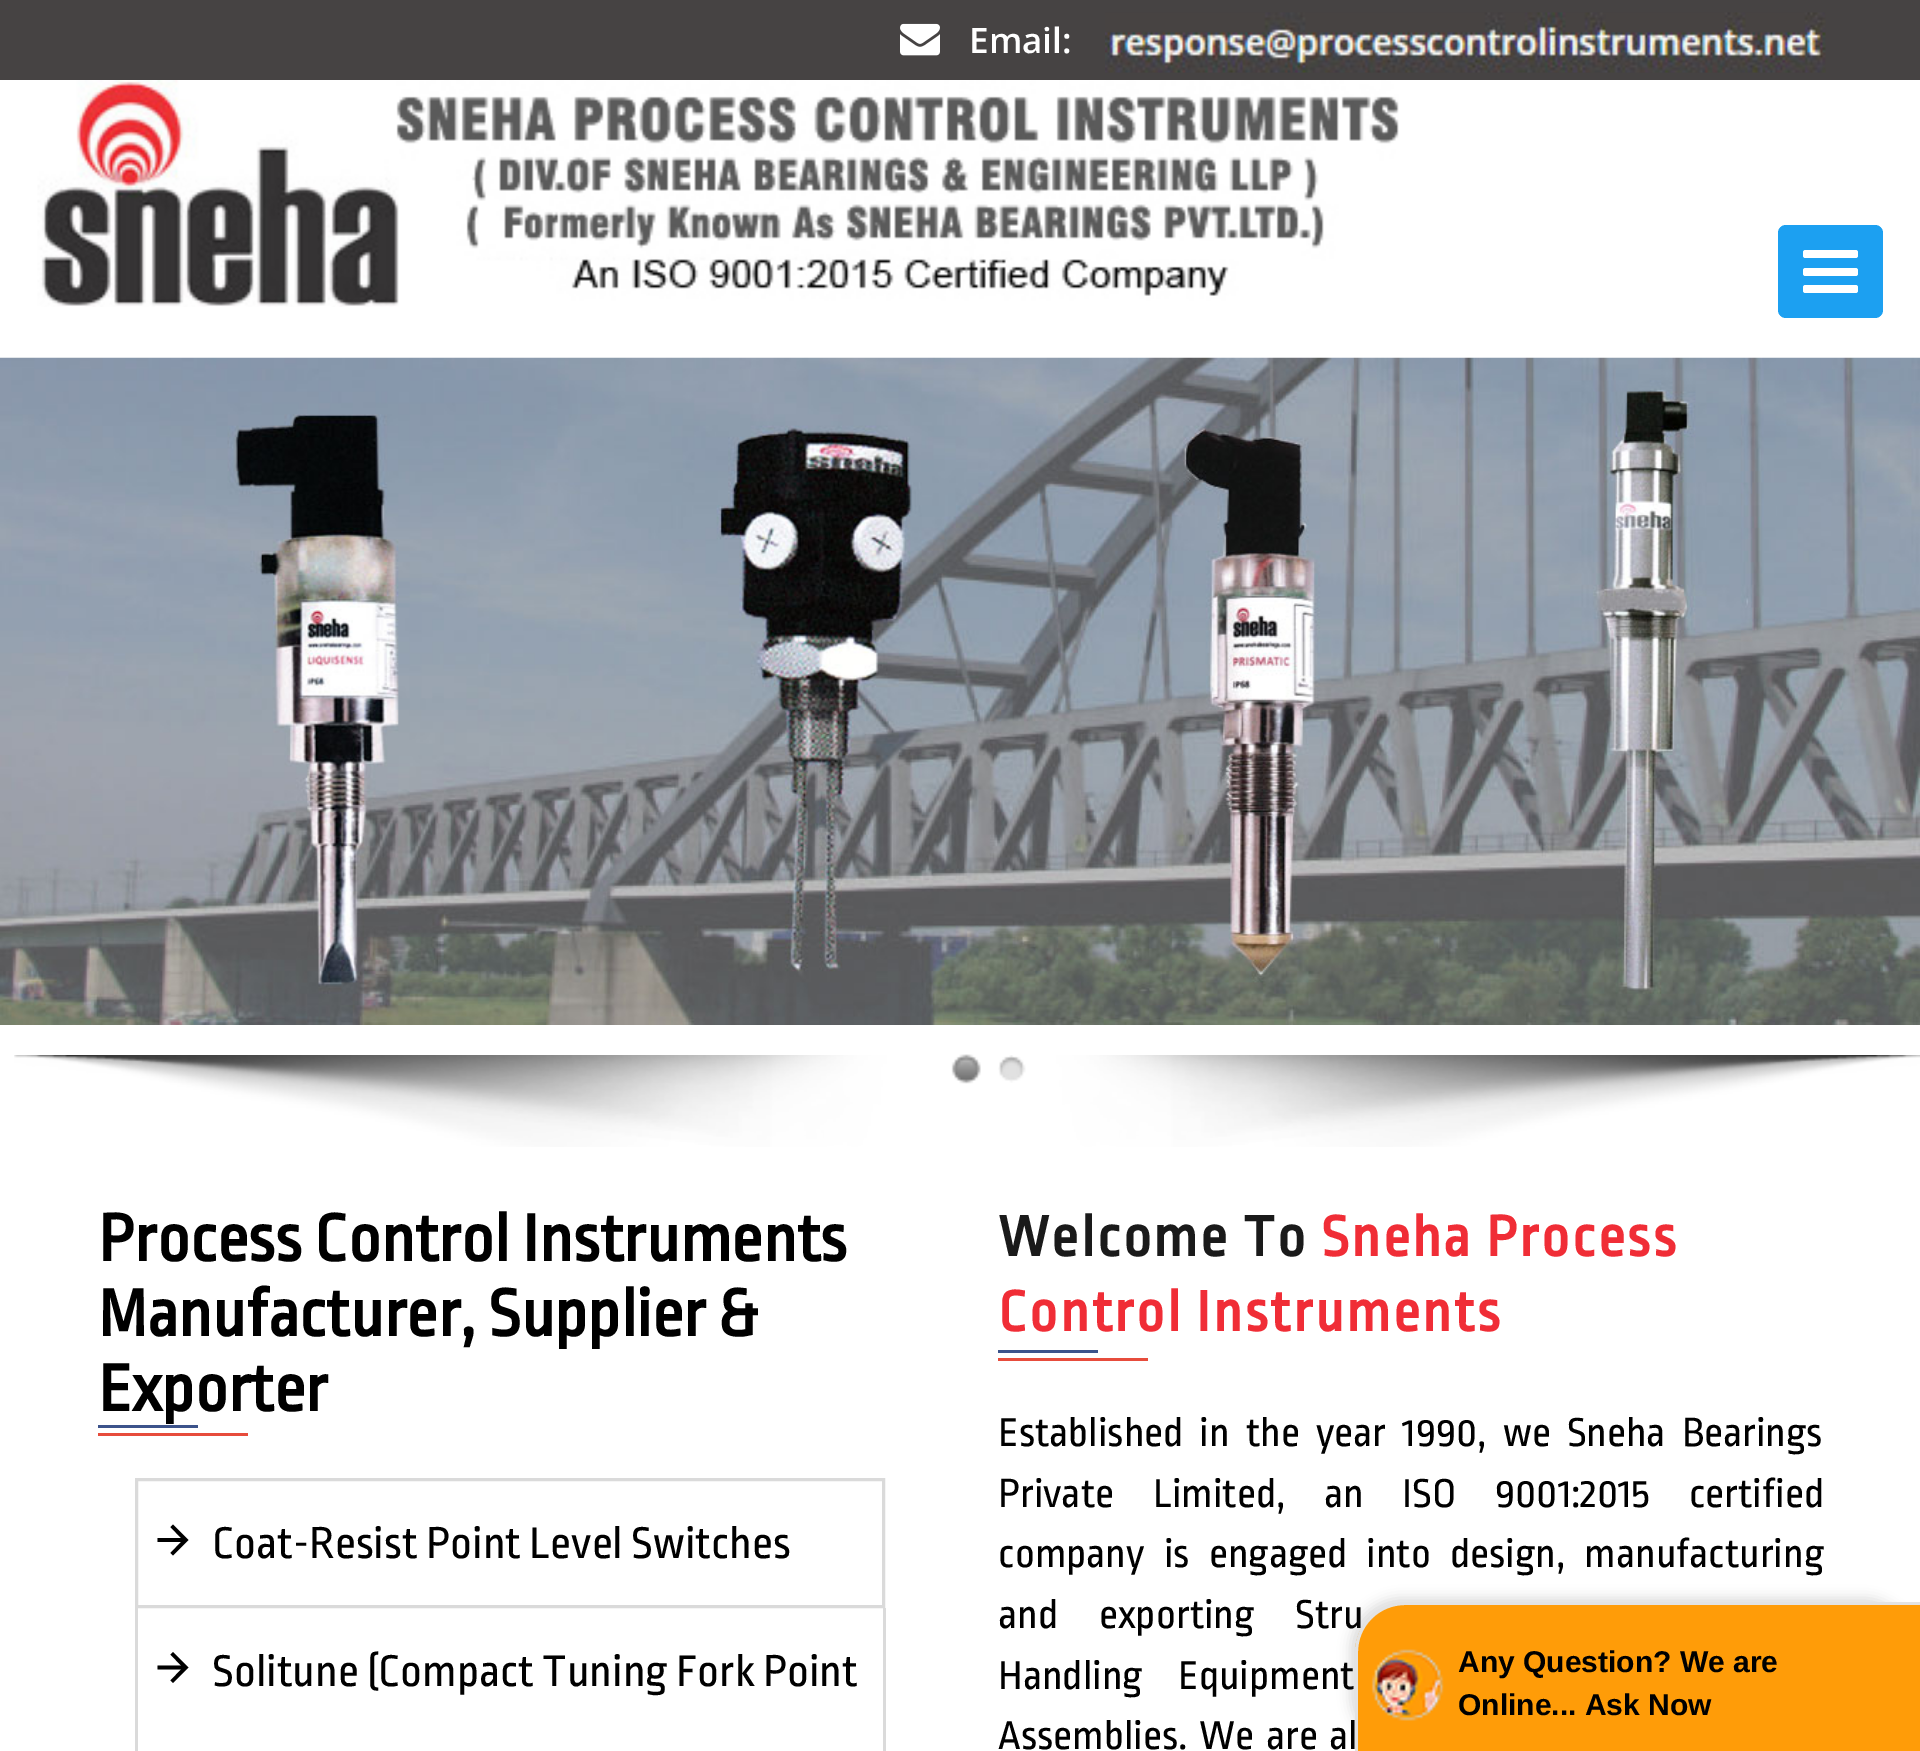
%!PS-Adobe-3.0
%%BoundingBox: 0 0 1920 1751
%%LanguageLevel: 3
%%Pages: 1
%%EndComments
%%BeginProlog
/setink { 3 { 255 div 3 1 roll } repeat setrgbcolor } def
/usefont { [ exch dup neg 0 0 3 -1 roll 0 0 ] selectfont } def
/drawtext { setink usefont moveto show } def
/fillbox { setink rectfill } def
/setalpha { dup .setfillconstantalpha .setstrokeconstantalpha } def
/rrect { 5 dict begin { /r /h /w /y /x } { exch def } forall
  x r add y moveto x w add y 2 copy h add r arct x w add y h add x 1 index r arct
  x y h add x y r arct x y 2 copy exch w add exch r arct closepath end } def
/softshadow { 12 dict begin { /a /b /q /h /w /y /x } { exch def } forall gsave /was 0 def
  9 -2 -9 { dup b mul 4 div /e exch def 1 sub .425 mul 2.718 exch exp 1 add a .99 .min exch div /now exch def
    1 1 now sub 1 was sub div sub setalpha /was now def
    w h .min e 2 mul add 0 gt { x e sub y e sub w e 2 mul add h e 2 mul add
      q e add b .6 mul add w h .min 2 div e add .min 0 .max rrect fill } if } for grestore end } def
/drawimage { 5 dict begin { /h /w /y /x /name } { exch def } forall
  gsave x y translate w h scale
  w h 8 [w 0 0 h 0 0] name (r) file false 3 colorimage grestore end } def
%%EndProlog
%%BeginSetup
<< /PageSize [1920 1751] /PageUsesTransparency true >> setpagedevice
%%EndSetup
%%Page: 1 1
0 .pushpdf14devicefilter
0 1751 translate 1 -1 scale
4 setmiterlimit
0 0 1920 1751 255 255 255 fillbox
0 0 1920 80 70 67 67 fillbox
(assets/img1.rgb) 900 23 40 33 drawimage
(Email:) 969 53 /OpenSans-SemiBold 35 255 255 255 drawtext
(assets/img2.rgb) 1105 12 721 61 drawimage
(assets/img3.rgb) 37 80 1362 227 drawimage
28 160 241 setink
1778 225 105 93 8 rrect fill
255 255 255 setink
1803 250 55 8 2.5 rrect fill
1803 268 55 8 2.5 rrect fill
1803 285 55 8 2.5 rrect fill
(assets/img4.rgb) 0 357 1920 668 drawimage
(assets/img7.rgb) 14 1055 1906 92 drawimage
(assets/img5.rgb) 951 1054 30 30 drawimage
(assets/img6.rgb) 998 1055 28 28 drawimage
(Process Control Instruments) 98 1261 /RopaSans-Bold 70 0 0 0 drawtext
(Manufacturer, Supplier &) 98 1336 /RopaSans-Bold 70 0 0 0 drawtext
(Exporter) 98 1411 /RopaSans-Bold 70 0 0 0 drawtext
98 1425 100 3 60 83 139 fillbox
98 1433 150 3 231 76 60 fillbox
218 218 218 setink
3 setlinewidth
136.5 1479.5 747 127 rectstroke
0 0 0 setink
157.5 1542 moveto 157.5 1538 lineto 181 1538 lineto 170.5 1527 lineto 173 1524.5 lineto 188.5 1540 lineto 173 1555.5 lineto 170.5 1553 lineto 181 1542 lineto closepath fill
(Coat-Resist Point Level Switches) 212 1558 /RopaSans-Regular 46.75 0 0 0 drawtext
883 1608 3 143 218 218 218 fillbox
135 1608 3 143 218 218 218 fillbox
0 0 0 setink
157.5 1669.5 moveto 157.5 1665.5 lineto 181 1665.5 lineto 170.5 1654.5 lineto 173 1652 lineto 188.5 1667.5 lineto 173 1683 lineto 170.5 1680.5 lineto 181 1669.5 lineto closepath fill
(Solitune \(Compact Tuning Fork Point) 212 1686 /RopaSans-Regular 46.75 0 0 0 drawtext
/RopaSans-Bold 60 usefont
26 26 26 setink
998 1256 moveto 2.5 0 (Welcome To) ashow
240 45 54 setink
1321 1256 moveto 2.5 0 (Sneha Process) ashow
998 1331 moveto 2.5 0 (Control Instruments) ashow
998 1350 100 3 60 83 139 fillbox
998 1358 150 3 231 76 60 fillbox
/RopaSans-Regular 42.5 usefont
0 0 0 setink
998 1446 moveto 8.5 0 32 (Established in the year 1990, we Sneha Bearings) widthshow
998 1507 moveto 31 0 32 (Private Limited, an ISO 9001:2015 certified) widthshow
998 1567 moveto 11.5 0 32 (company is engaged into design, manufacturing) widthshow
998 1628 moveto 33 0 32 (and exporting Stru) widthshow
998 1689 moveto 28 0 32 (Handling Equipment) widthshow
998 1749 moveto 4 0 32 (Assemblies. We are al) widthshow
50 50 50 setink
1350 1598 565 150 50 6 0.17 softshadow
255 156 8 setink
1405 1603 moveto 1920 1603 lineto 1920 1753 lineto 1355 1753 lineto 1355 1653 lineto 1355 1625.5 1377.5 1603 1405 1603 curveto closepath fill
227 227 227 setink
1405 1602 moveto 1920 1602 lineto 1920 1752 lineto 1355 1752 lineto 1355 1652 lineto 1355 1625 1377 1602 1405 1602 curveto closepath 1405 1605 moveto 1920 1605 lineto 1920 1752 lineto 1358 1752 lineto 1358 1652 lineto 1358 1626 1379 1605 1405 1605 curveto closepath eofill
(assets/img8.rgb) 1371 1649 73 72 drawimage
(Any Question? We are) 1458 1672 /LiberationSans-Bold 30 0 0 0 drawtext
(Online... Ask Now) 1458 1715 /LiberationSans-Bold 30 0 0 0 drawtext
.poppdf14devicefilter showpage
%%EOF
